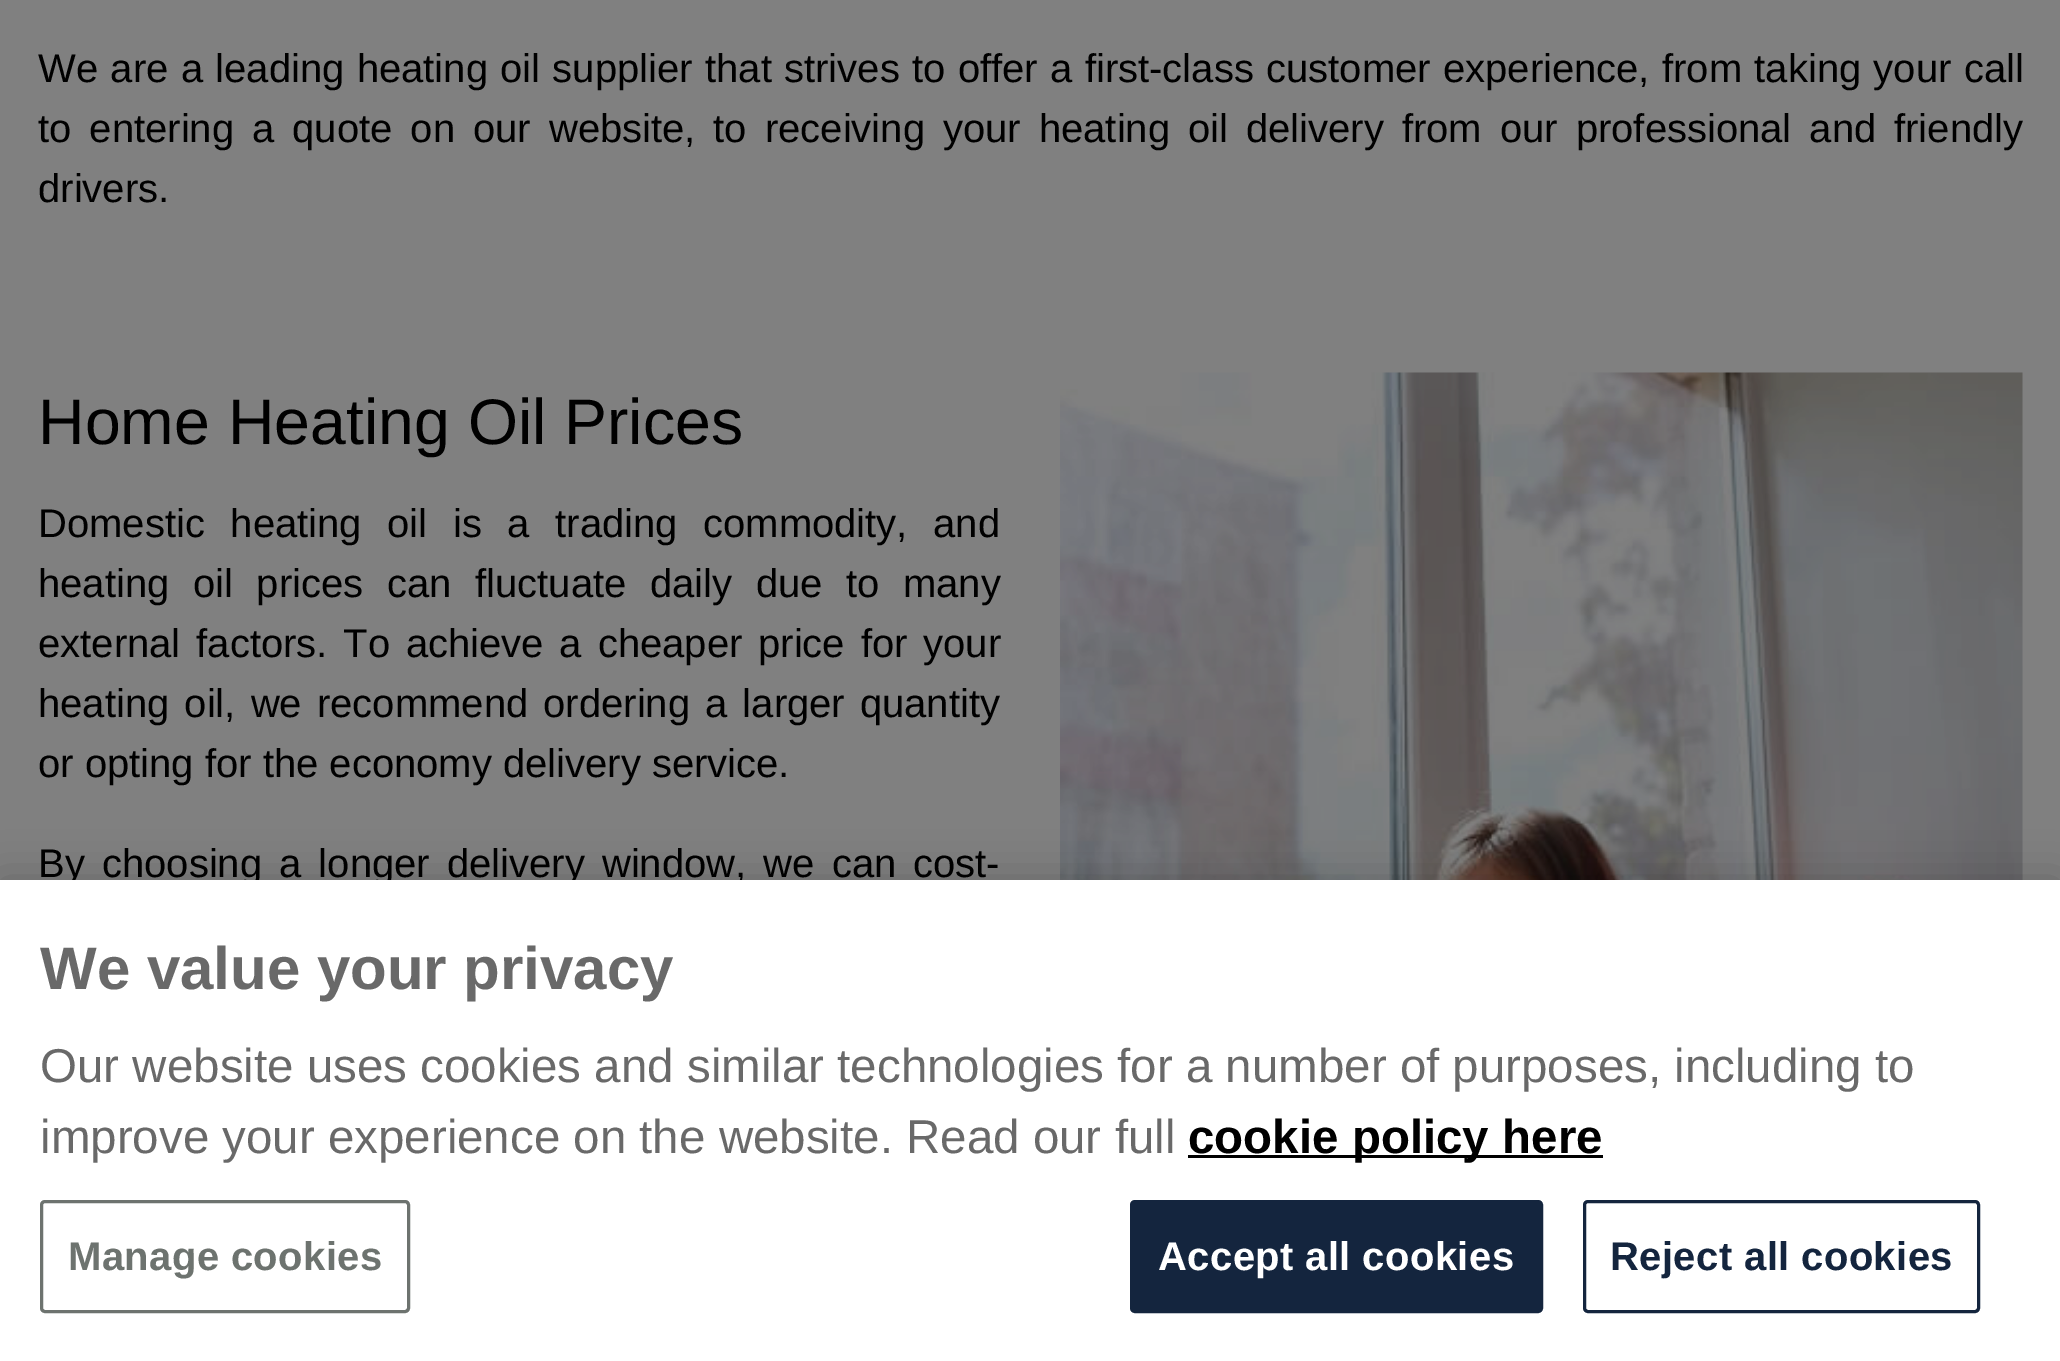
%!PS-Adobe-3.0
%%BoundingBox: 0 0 2060 1361
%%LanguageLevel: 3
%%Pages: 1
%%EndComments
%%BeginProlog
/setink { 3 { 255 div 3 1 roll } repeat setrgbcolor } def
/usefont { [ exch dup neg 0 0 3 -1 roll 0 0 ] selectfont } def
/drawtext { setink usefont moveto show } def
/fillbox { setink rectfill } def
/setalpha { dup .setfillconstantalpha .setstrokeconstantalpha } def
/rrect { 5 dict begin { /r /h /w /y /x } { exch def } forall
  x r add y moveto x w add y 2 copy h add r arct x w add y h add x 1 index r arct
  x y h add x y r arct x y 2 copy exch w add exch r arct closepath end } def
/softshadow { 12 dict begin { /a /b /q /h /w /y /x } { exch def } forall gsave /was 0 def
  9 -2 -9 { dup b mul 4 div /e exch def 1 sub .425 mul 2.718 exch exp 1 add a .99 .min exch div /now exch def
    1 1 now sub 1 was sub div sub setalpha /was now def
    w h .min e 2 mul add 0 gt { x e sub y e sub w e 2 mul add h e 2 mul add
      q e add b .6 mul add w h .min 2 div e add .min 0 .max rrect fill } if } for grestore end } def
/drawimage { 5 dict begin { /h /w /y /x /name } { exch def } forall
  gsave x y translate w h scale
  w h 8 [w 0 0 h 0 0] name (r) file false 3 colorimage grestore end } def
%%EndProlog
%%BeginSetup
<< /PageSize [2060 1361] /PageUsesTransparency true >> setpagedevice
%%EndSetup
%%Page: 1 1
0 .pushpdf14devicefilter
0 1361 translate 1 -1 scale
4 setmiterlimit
0 0 2060 1361 128 128 128 fillbox
/LiberationSans-Regular 40 usefont
0 0 0 setink
38 82 moveto 1.25 0 32 (We are a leading heating oil supplier that strives to offer a first-class customer experience, from taking your call) widthshow
38 142 moveto 6.9 0 32 (to entering a quote on our website, to receiving your heating oil delivery from our professional and friendly) widthshow
(drivers.) 38 202 /LiberationSans-Regular 40 0 0 0 drawtext
(Home Heating Oil Prices) 38 444 /LiberationSans-Regular 64.4 0 0 0 drawtext
/LiberationSans-Regular 40 usefont
38 537 moveto 14.5 0 32 (Domestic heating oil is a trading commodity, and) widthshow
38 597 moveto 12.5 0 32 (heating oil prices can fluctuate daily due to many) widthshow
38 657 moveto 4.75 0 32 (external factors. To achieve a cheaper price for your) widthshow
38 717 moveto 4 0 32 (heating oil, we recommend ordering a larger quantity) widthshow
(or opting for the economy delivery service.) 38 777 /LiberationSans-Regular 40 0 0 0 drawtext
38 877 moveto 6 0 32 (By choosing a longer delivery window, we can cost-) widthshow
(assets/img1.rgb) 1060 372 963 508 drawimage
0 880 2060 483 0 22.5 0.2 softshadow
0 880 2060 481 255 255 255 fillbox
(We value your privacy) 40 989 /LiberationSans-Bold 60 105 105 105 drawtext
(Our website uses cookies and similar technologies for a number of purposes, including to) 40 1082 /LiberationSans-Regular 47.5 105 105 105 drawtext
(improve your experience on the website. Read our full) 40 1153 /LiberationSans-Regular 47.5 105 105 105 drawtext
1188 1155 415 3 0 0 0 fillbox
(cookie policy here) 1188 1153 /LiberationSans-Bold 47.5 0 0 0 drawtext
109 115 111 setink
3 setlinewidth
41.5 1201.5 367 110 3.5 rrect stroke
/LiberationSans-Bold 40 usefont
68 1270 moveto 0.4 0 (Manage cookies) ashow
20 37 62 setink
1131.5 1201.5 410 110 3.5 rrect gsave fill grestore
stroke
255 255 255 setink
1158 1270 moveto 0.4 0 (Accept all cookies) ashow
20 37 62 setink
1584.5 1201.5 394 110 3.5 rrect stroke
1610 1270 moveto 0.4 0 (Reject all cookies) ashow
.poppdf14devicefilter showpage
%%EOF
